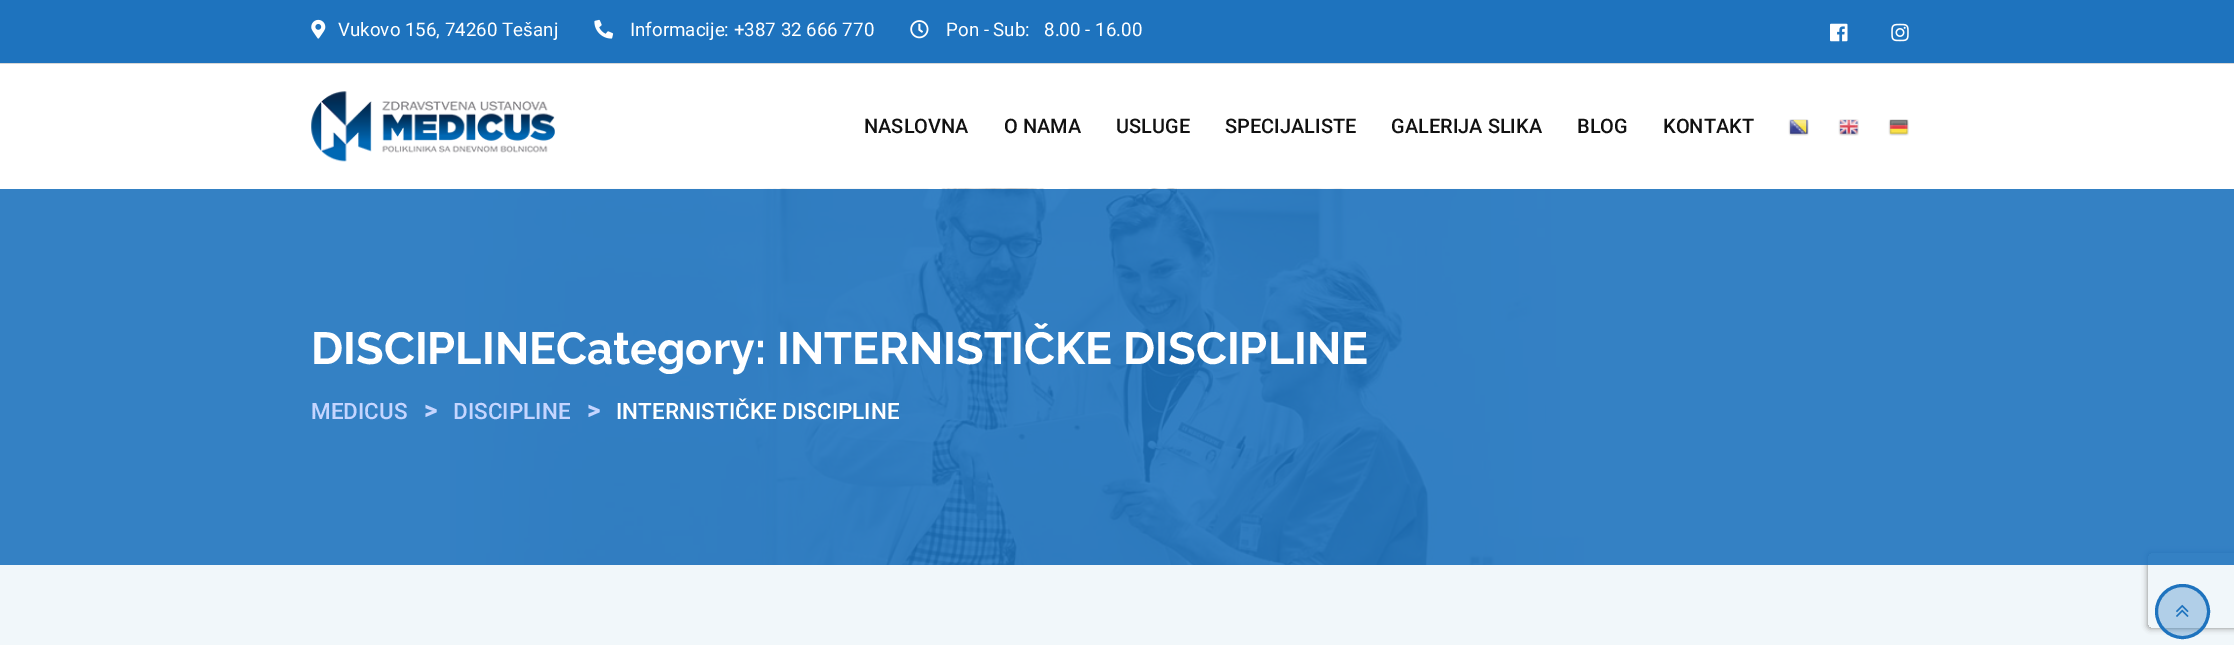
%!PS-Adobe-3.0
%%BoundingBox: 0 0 2234 645
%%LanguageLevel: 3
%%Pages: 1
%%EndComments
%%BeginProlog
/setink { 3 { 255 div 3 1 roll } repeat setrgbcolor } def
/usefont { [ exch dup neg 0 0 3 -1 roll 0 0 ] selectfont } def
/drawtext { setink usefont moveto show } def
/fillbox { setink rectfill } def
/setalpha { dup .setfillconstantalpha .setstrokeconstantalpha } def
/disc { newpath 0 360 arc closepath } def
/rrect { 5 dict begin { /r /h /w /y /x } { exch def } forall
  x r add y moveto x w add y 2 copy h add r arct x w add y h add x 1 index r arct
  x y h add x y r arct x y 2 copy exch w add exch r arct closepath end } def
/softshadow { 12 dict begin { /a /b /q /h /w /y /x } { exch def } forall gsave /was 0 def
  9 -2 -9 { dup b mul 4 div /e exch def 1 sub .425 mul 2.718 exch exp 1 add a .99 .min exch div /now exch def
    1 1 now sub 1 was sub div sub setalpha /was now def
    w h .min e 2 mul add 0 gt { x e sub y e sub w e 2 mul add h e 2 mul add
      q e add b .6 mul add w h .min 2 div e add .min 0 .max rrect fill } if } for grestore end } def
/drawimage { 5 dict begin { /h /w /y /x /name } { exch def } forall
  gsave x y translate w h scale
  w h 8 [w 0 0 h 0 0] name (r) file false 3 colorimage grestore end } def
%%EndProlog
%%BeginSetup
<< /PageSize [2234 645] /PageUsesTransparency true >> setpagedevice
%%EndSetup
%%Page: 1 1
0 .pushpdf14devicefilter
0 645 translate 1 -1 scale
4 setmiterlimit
0 0 2234 645 255 255 255 fillbox
0 0 2234 63 30 115 190 fillbox
0 63 2234 1 215 215 215 fillbox
(assets/img1.rgb) 311 19 15 20 drawimage
(Vukovo 156, 74260 Tešanj) 338 36 /Roboto-Regular 18.75 255 255 255 drawtext
(assets/img2.rgb) 594 19 20 20 drawimage
(Informacije: +387 32 666 770) 630 36 /Roboto-Regular 18.75 255 255 255 drawtext
(assets/img3.rgb) 910 20 19 19 drawimage
(Pon - Sub:) 946 36 /Roboto-Regular 18.75 255 255 255 drawtext
(8.00 - 16.00) 1044 36 /Roboto-Regular 18.75 255 255 255 drawtext
(assets/img4.rgb) 1830 23 18 19 drawimage
(assets/img5.rgb) 1891 23 18 19 drawimage
(assets/img6.rgb) 311 91 244 71 drawimage
(NASLOVNA) 864 133 /Roboto-Medium 20 17 17 17 drawtext
(O NAMA) 1004 133 /Roboto-Medium 20 17 17 17 drawtext
(USLUGE) 1116 133 /Roboto-Medium 20 17 17 17 drawtext
(SPECIJALISTE) 1225 133 /Roboto-Medium 20 17 17 17 drawtext
(GALERIJA SLIKA) 1391 133 /Roboto-Medium 20 17 17 17 drawtext
(BLOG) 1577 133 /Roboto-Medium 20 17 17 17 drawtext
(KONTAKT) 1663 133 /Roboto-Medium 20 17 17 17 drawtext
(assets/img7.rgb) 1788 119 21 17 drawimage
(assets/img8.rgb) 1838 119 21 17 drawimage
(assets/img9.rgb) 1888 119 21 17 drawimage
(assets/img10.rgb) 450 188 1134 377 drawimage
0 565 2234 80 241 247 250 fillbox
gsave
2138 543 moveto 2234 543 lineto 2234 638 lineto 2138 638 lineto closepath 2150.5 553 moveto 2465.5 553 lineto 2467 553 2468 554 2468 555.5 curveto 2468 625.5 lineto 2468 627 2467 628 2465.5 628 curveto 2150.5 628 lineto 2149 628 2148 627 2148 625.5 curveto 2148 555.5 lineto 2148 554 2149 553 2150.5 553 curveto closepath eoclip newpath
128 128 128 setink
2148 553 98 75 2.5 3 1 softshadow
grestore
0.9 setalpha
0 189 2234 376 30 115 190 fillbox
1 setalpha
(DISCIPLINECategory: INTERNISTIČKE DISCIPLINE) 311 364 /Raleway-Bold 45 255 255 255 drawtext
(MEDICUS) 311 419 /Roboto-Medium 22.5 197 213 255 drawtext
(>) 424 419 /Roboto-Bold 25 197 213 255 drawtext
(DISCIPLINE) 453 419 /Roboto-Medium 22.5 197 213 255 drawtext
(>) 587 419 /Roboto-Bold 25 197 213 255 drawtext
(INTERNISTIČKE DISCIPLINE) 616 419 /Roboto-Medium 22.5 255 255 255 drawtext
0.3 setalpha
30 115 190 setink
2182.5 611.5 26 disc fill
1 setalpha
3 setlinewidth
2182.5 611.5 26 disc stroke
(assets/img11.rgb) 2176 604 13 13 drawimage
.poppdf14devicefilter showpage
%%EOF
